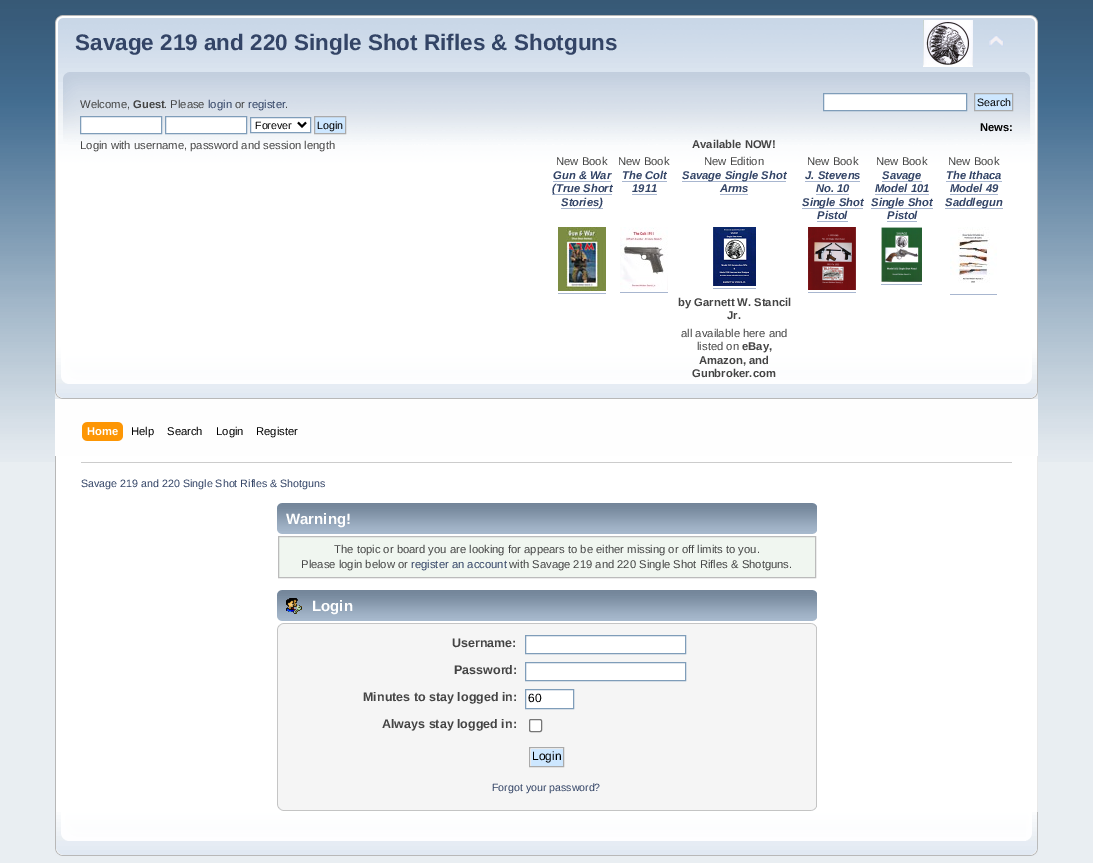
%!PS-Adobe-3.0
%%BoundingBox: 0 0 1093 863
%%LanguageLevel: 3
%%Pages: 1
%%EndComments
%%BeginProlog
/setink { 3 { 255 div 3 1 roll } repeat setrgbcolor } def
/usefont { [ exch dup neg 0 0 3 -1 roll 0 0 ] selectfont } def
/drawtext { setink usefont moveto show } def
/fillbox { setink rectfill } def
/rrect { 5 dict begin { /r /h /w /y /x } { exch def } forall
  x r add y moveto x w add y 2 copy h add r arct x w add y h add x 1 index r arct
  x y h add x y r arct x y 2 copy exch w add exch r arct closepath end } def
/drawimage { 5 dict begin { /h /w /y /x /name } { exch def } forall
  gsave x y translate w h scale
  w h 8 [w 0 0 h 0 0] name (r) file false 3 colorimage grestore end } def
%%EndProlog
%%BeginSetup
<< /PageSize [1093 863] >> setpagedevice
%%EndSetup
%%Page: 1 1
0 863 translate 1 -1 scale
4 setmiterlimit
0 0 1093 863 233 238 242 fillbox
(assets/img1.rgb) 0 0 1093 462 drawimage
55 399 983 57 254 254 254 fillbox
(assets/img2.rgb) 55 15 970 384 drawimage
(assets/img3.rgb) 1025 15 13 384 drawimage
(Savage 219 and 220 Single Shot Rifles & Shotguns) 75 50 /LiberationSans-Bold 22.5 51 68 102 drawtext
(assets/img4.rgb) 923 20 50 47 drawimage
(assets/img5.rgb) 989 35 15 12 drawimage
(Welcome,) 80 108 /LiberationSans-Regular 11.25 68 68 68 drawtext
(Guest) 133 108 /LiberationSans-Bold 11.25 68 68 68 drawtext
(. Please) 164 108 /LiberationSans-Regular 11.25 68 68 68 drawtext
(login) 208 108 /LiberationSans-Regular 11.25 51 68 102 drawtext
(or) 235 108 /LiberationSans-Regular 11.25 68 68 68 drawtext
(register) 248 108 /LiberationSans-Regular 11.25 51 68 102 drawtext
(.) 285 108 /LiberationSans-Regular 11.25 68 68 68 drawtext
255 255 255 setink
80.5 116.5 moveto 161.5 116.5 lineto 161.5 133.5 lineto 80.5 133.5 lineto closepath gsave fill grestore
127 157 185 setink
stroke
255 255 255 setink
165.5 116.5 moveto 246.5 116.5 lineto 246.5 133.5 lineto 165.5 133.5 lineto closepath gsave fill grestore
127 157 185 setink
stroke
255 255 255 setink
250.5 117.5 moveto 310.5 117.5 lineto 310.5 132.5 lineto 250.5 132.5 lineto closepath gsave fill grestore
127 157 185 setink
stroke
0 0 0 setink
2 setlinewidth
298 122.5 moveto 302 126.5 lineto 306 122.5 lineto stroke
(Forever) 255 129 /LiberationSans-Regular 10.7 0 0 0 drawtext
205 231 255 setink
314.5 116.5 moveto 345.5 116.5 lineto 345.5 133.5 lineto 314.5 133.5 lineto closepath gsave fill grestore
170 170 170 setink
1 setlinewidth
stroke
(Login) 317 129 /LiberationSans-Regular 10.7 0 0 0 drawtext
(Login with username, password and session length) 80 149 /LiberationSans-Regular 11.25 68 68 68 drawtext
255 255 255 setink
823.5 93.5 moveto 966.5 93.5 lineto 966.5 110.5 lineto 823.5 110.5 lineto closepath gsave fill grestore
127 157 185 setink
stroke
205 231 255 setink
974.5 93.5 moveto 1012.5 93.5 lineto 1012.5 110.5 lineto 974.5 110.5 lineto closepath gsave fill grestore
170 170 170 setink
stroke
(Search) 977 106 /LiberationSans-Regular 10.7 0 0 0 drawtext
(News:) 980 131 /LiberationSans-Bold 11.25 0 0 0 drawtext
(Available NOW!) 692 148 /LiberationSans-Bold 11.25 68 68 68 drawtext
(New Book) 556 165 /LiberationSans-Regular 11.25 68 68 68 drawtext
(Gun & War) 553 179 /LiberationSans-BoldItalic 11.25 51 68 102 drawtext
553 181 58 1 168 182 207 fillbox
552 194 60 1 168 182 207 fillbox
(\(True Short) 552 192 /LiberationSans-BoldItalic 11.25 51 68 102 drawtext
561 208 42 1 168 182 207 fillbox
(Stories\)) 561 206 /LiberationSans-BoldItalic 11.25 51 68 102 drawtext
(New Book) 618 165 /LiberationSans-Regular 11.25 68 68 68 drawtext
(The Colt) 622 179 /LiberationSans-BoldItalic 11.25 51 68 102 drawtext
622 181 45 1 168 182 207 fillbox
(1911) 632 192 /LiberationSans-BoldItalic 11.25 51 68 102 drawtext
632 194 25 1 168 182 207 fillbox
(New Edition) 704 165 /LiberationSans-Regular 11.25 68 68 68 drawtext
682 181 104 1 168 182 207 fillbox
(Savage Single Shot) 682 179 /LiberationSans-BoldItalic 11.25 51 68 102 drawtext
(Arms) 720 192 /LiberationSans-BoldItalic 11.25 51 68 102 drawtext
720 194 28 1 168 182 207 fillbox
(New Book) 807 165 /LiberationSans-Regular 11.25 68 68 68 drawtext
(J. Stevens) 805 179 /LiberationSans-BoldItalic 11.25 51 68 102 drawtext
805 181 55 1 168 182 207 fillbox
(No. 10) 816 192 /LiberationSans-BoldItalic 11.25 51 68 102 drawtext
816 194 33 1 168 182 207 fillbox
802 208 61 1 168 182 207 fillbox
(Single Shot) 802 206 /LiberationSans-BoldItalic 11.25 51 68 102 drawtext
(Pistol) 817 219 /LiberationSans-BoldItalic 11.25 51 68 102 drawtext
817 221 31 1 168 182 207 fillbox
(New Book) 876 165 /LiberationSans-Regular 11.25 68 68 68 drawtext
882 181 40 1 168 182 207 fillbox
(Savage) 882 179 /LiberationSans-BoldItalic 11.25 51 68 102 drawtext
(Model 101) 875 192 /LiberationSans-BoldItalic 11.25 51 68 102 drawtext
875 194 54 1 168 182 207 fillbox
871 208 62 1 168 182 207 fillbox
(Single Shot) 871 206 /LiberationSans-BoldItalic 11.25 51 68 102 drawtext
(Pistol) 887 219 /LiberationSans-BoldItalic 11.25 51 68 102 drawtext
887 221 30 1 168 182 207 fillbox
(New Book) 948 165 /LiberationSans-Regular 11.25 68 68 68 drawtext
(The Ithaca) 946 179 /LiberationSans-BoldItalic 11.25 51 68 102 drawtext
946 181 56 1 168 182 207 fillbox
(Model 49) 950 192 /LiberationSans-BoldItalic 11.25 51 68 102 drawtext
950 194 48 1 168 182 207 fillbox
945 208 58 1 168 182 207 fillbox
(Saddlegun) 945 206 /LiberationSans-BoldItalic 11.25 51 68 102 drawtext
(assets/img6.rgb) 558 227 48 64 drawimage
558 293 48 1 168 182 207 fillbox
(assets/img7.rgb) 620 227 48 63 drawimage
620 292 48 1 168 182 207 fillbox
(assets/img8.rgb) 713 227 43 59 drawimage
713 288 43 1 168 182 207 fillbox
(assets/img9.rgb) 808 227 48 63 drawimage
808 292 48 1 168 182 207 fillbox
(assets/img10.rgb) 881 227 41 55 drawimage
881 284 41 1 168 182 207 fillbox
(assets/img11.rgb) 950 227 47 56 drawimage
950 294 47 1 168 182 207 fillbox
(by Garnett W. Stancil) 678 306 /LiberationSans-Bold 11.25 68 68 68 drawtext
(Jr.) 727 319 /LiberationSans-Bold 11.25 68 68 68 drawtext
(all available here and) 681 337 /LiberationSans-Regular 11.25 68 68 68 drawtext
(listed on) 697 350 /LiberationSans-Regular 11.25 68 68 68 drawtext
(eBay,) 742 350 /LiberationSans-Bold 11.25 68 68 68 drawtext
(Amazon, and) 699 364 /LiberationSans-Bold 11.25 68 68 68 drawtext
(Gunbroker.com) 692 377 /LiberationSans-Bold 11.25 68 68 68 drawtext
(assets/img12.rgb) 87 422 36 19 drawimage
(assets/img13.rgb) 82 422 5 19 drawimage
(Home) 87 435 /LiberationSans-Bold 11.25 255 255 255 drawtext
(Help) 131 435 /LiberationSans-Regular 11.25 0 0 0 drawtext
(Search) 167 435 /LiberationSans-Regular 11.25 0 0 0 drawtext
(Login) 216 435 /LiberationSans-Regular 11.25 0 0 0 drawtext
(Register) 256 435 /LiberationSans-Regular 11.25 0 0 0 drawtext
56 456 981 356 255 255 255 fillbox
55 456 1 356 183 183 183 fillbox
1037 456 1 356 233 233 233 fillbox
81 462 931 1 204 204 204 fillbox
(Savage 219 and 220 Single Shot Rifles & Shotguns) 81 487 /LiberationSans-Regular 10.7 51 68 102 drawtext
(assets/img14.rgb) 277 503 535 31 drawimage
(assets/img15.rgb) 812 503 5 31 drawimage
(Warning!) 286 524 /LiberationSans-Bold 15 255 255 255 drawtext
240 246 240 setink
278.5 536.5 moveto 815.5 536.5 lineto 815.5 577.5 lineto 278.5 577.5 lineto closepath gsave fill grestore
187 187 187 setink
stroke
(The topic or board you are looking for appears to be either missing or off limits to you.) 334 553 /LiberationSans-Regular 11.25 68 68 68 drawtext
(Please login below or) 301 568 /LiberationSans-Regular 11.25 68 68 68 drawtext
(register an account) 411 568 /LiberationSans-Regular 11.25 51 68 102 drawtext
(with Savage 219 and 220 Single Shot Rifles & Shotguns.) 509 568 /LiberationSans-Regular 11.25 68 68 68 drawtext
(assets/img14.rgb) 277 590 535 31 drawimage
(assets/img15.rgb) 812 590 5 31 drawimage
(assets/img16.rgb) 286 598 16 16 drawimage
(Login) 312 611 /LiberationSans-Bold 15 255 255 255 drawtext
(assets/img17.rgb) 277 623 534 11 drawimage
(assets/img18.rgb) 811 623 6 11 drawimage
278 634 538 166 245 245 245 fillbox
816 634 1 166 197 197 197 fillbox
277 634 1 166 197 197 197 fillbox
(Username:) 452 647 /LiberationSans-Bold 12.5 68 68 68 drawtext
255 255 255 setink
525.5 635.5 moveto 685.5 635.5 lineto 685.5 653.5 lineto 525.5 653.5 lineto closepath gsave fill grestore
127 157 185 setink
stroke
(Password:) 454 674 /LiberationSans-Bold 12.5 68 68 68 drawtext
255 255 255 setink
525.5 662.5 moveto 685.5 662.5 lineto 685.5 680.5 lineto 525.5 680.5 lineto closepath gsave fill grestore
127 157 185 setink
stroke
(Minutes to stay logged in:) 363 701 /LiberationSans-Bold 12.5 68 68 68 drawtext
255 255 255 setink
525.5 689.5 moveto 573.5 689.5 lineto 573.5 708.5 lineto 525.5 708.5 lineto closepath gsave fill grestore
127 157 185 setink
stroke
(60) 528 702 /LiberationSans-Regular 12 0 0 0 drawtext
(Always stay logged in:) 382 728 /LiberationSans-Bold 12.5 68 68 68 drawtext
255 255 255 setink
529.5 719.5 12 12 1.5 rrect gsave fill grestore
118 118 118 setink
stroke
(assets/img19.rgb) 530 748 33 18 drawimage
170 170 170 setink
529.5 747.5 34 19 rectstroke
(Login) 532 760 /LiberationSans-Regular 12 0 0 0 drawtext
(Forgot your password?) 492 791 /LiberationSans-Regular 10.6 51 68 102 drawtext
(assets/img20.rgb) 277 800 534 11 drawimage
(assets/img21.rgb) 811 800 6 11 drawimage
(assets/img22.rgb) 55 812 971 44 drawimage
(assets/img23.rgb) 1026 812 12 44 drawimage
showpage
%%EOF
